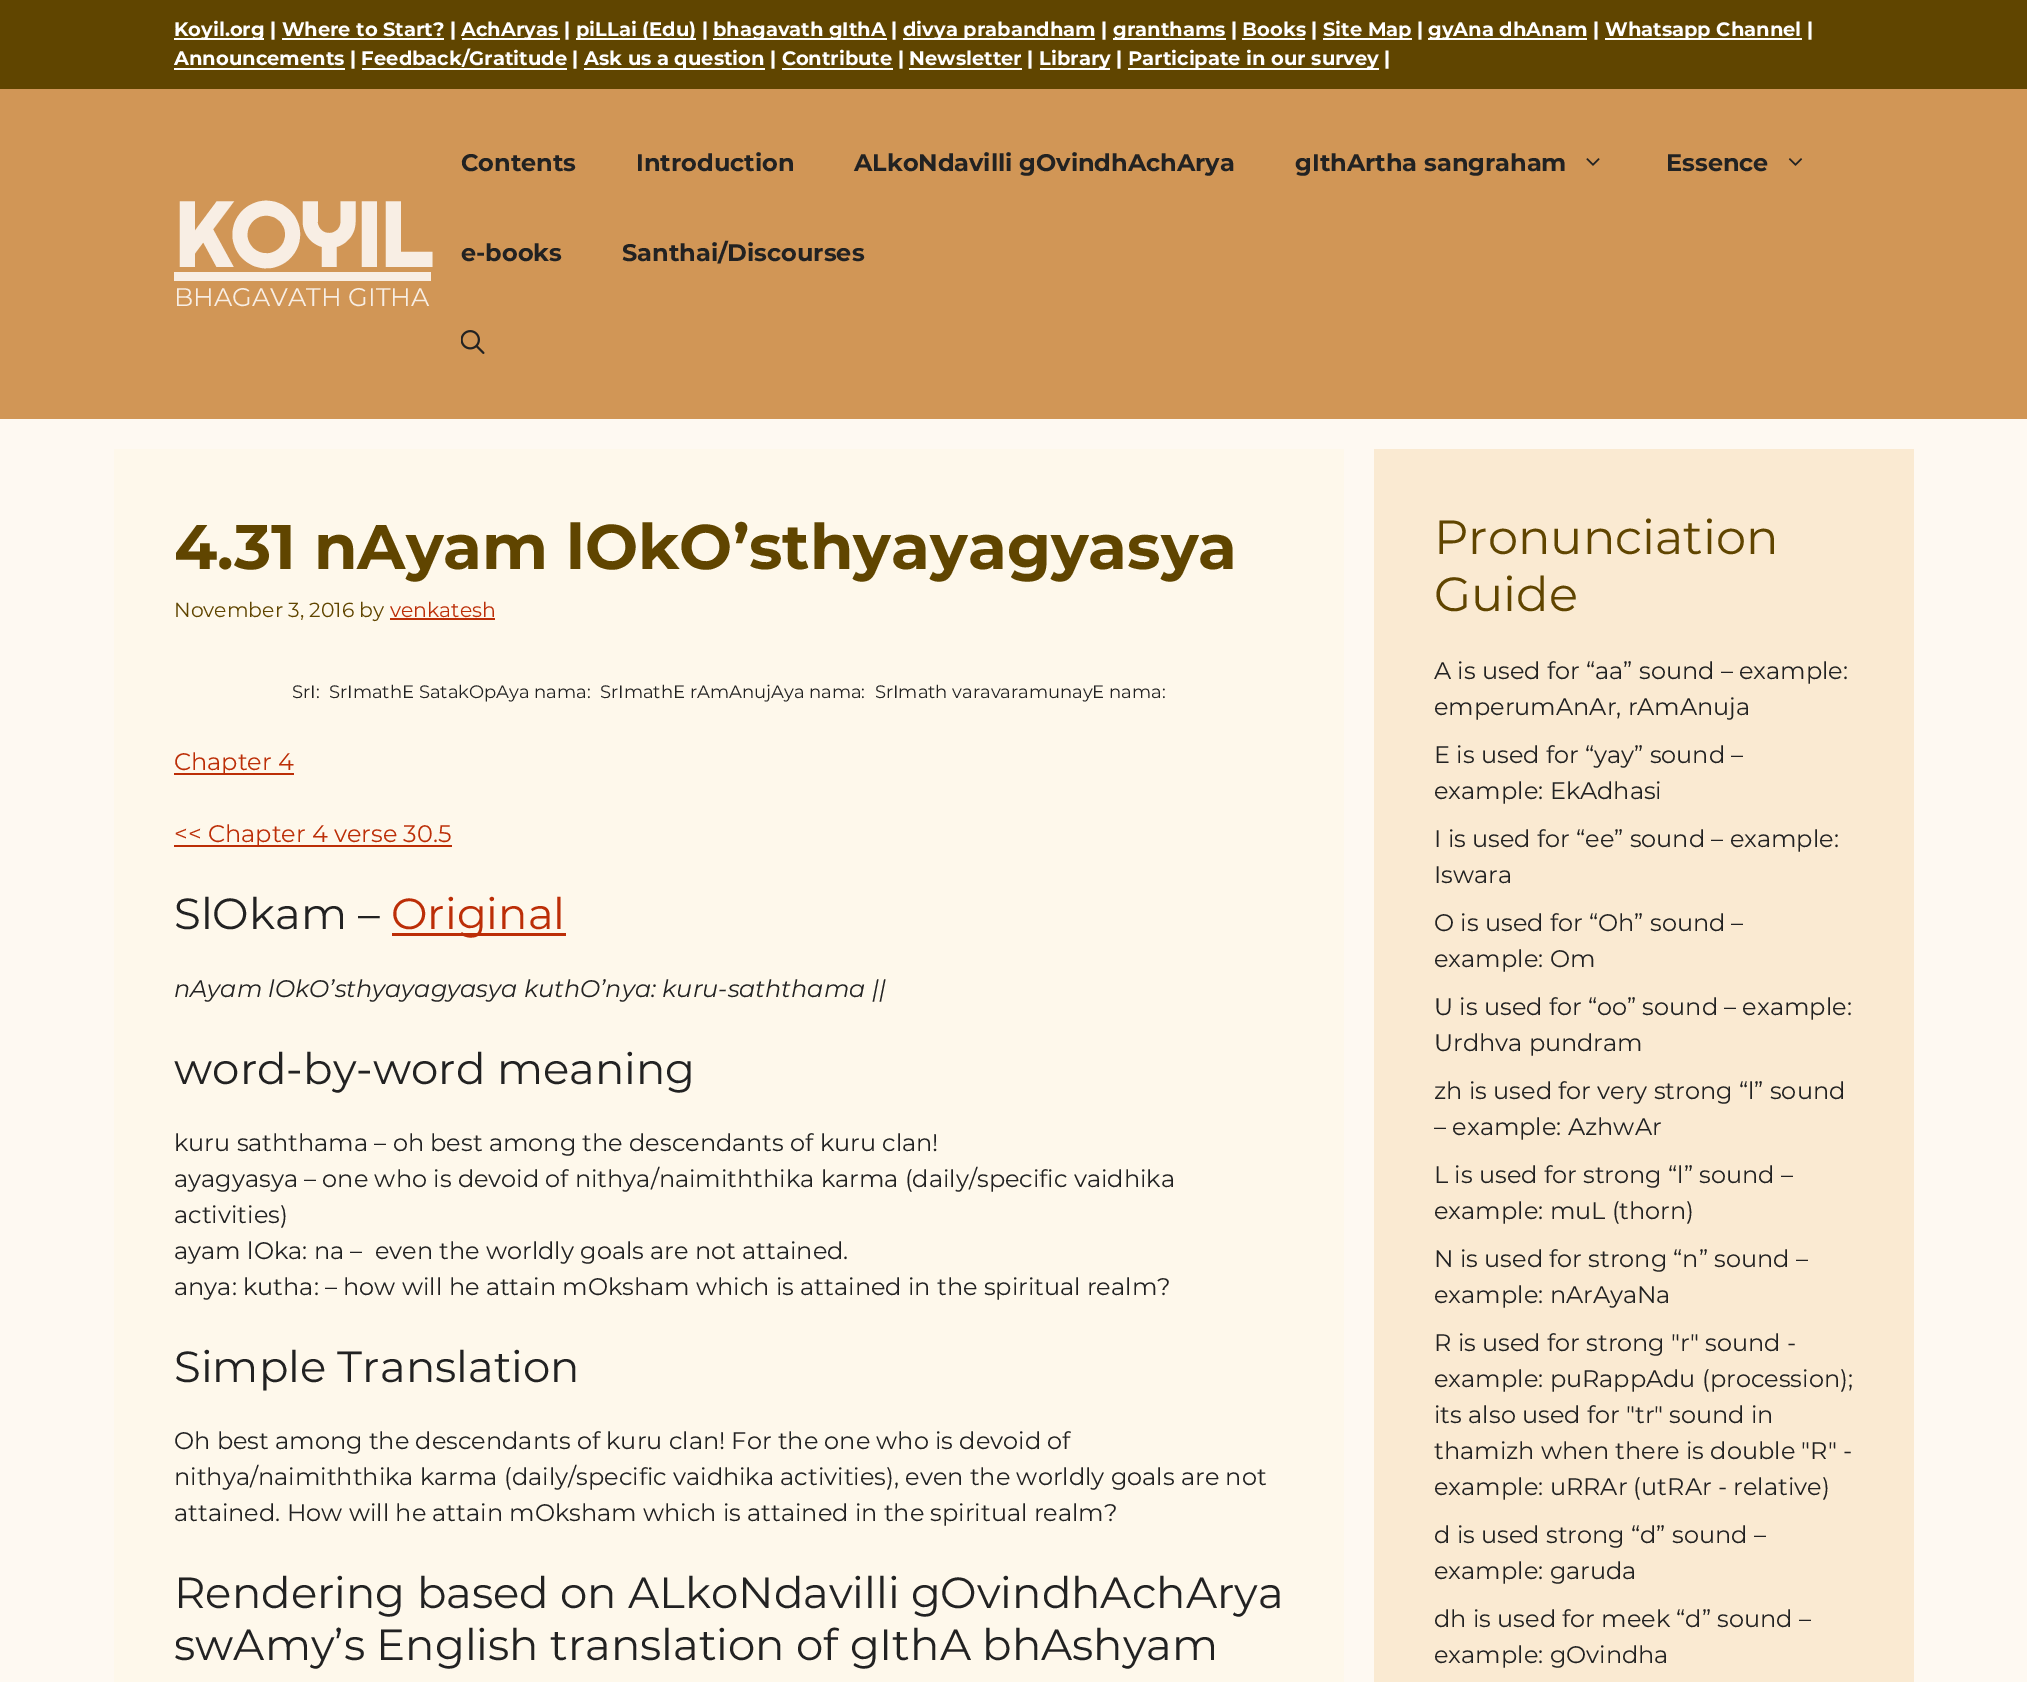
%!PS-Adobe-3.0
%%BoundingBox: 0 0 2027 1682
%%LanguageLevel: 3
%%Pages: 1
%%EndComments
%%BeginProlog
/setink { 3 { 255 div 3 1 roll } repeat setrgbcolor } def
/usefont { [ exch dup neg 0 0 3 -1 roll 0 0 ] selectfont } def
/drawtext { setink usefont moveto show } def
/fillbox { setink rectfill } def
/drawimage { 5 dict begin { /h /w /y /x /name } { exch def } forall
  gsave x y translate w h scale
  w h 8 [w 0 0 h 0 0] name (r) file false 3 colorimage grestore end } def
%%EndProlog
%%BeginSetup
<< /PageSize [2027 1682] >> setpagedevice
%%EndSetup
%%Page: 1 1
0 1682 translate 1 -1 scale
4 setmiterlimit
0 0 2027 1682 254 249 242 fillbox
0 0 2027 89 96 69 0 fillbox
174 38 90 2 255 255 255 fillbox
(Koyil.org | Where to Start? |) 174 36 /Montserrat-Bold 19.5 255 255 255 drawtext
282 38 162 2 255 255 255 fillbox
462 38 98 2 255 255 255 fillbox
(AchAryas |) 461 36 /Montserrat-Bold 19.5 255 255 255 drawtext
576 38 120 2 255 255 255 fillbox
(piLLai \(Edu\) |) 576 36 /Montserrat-Bold 19.5 255 255 255 drawtext
713 38 174 2 255 255 255 fillbox
(bhagavath gIthA |) 713 36 /Montserrat-Bold 19.5 255 255 255 drawtext
903 38 192 2 255 255 255 fillbox
(divya prabandham |) 903 36 /Montserrat-Bold 19.5 255 255 255 drawtext
1113 38 113 2 255 255 255 fillbox
(granthams | Books |) 1113 36 /Montserrat-Bold 19.5 255 255 255 drawtext
1242 38 63 2 255 255 255 fillbox
1323 38 89 2 255 255 255 fillbox
(Site Map |) 1323 36 /Montserrat-Bold 19.5 255 255 255 drawtext
1428 38 159 2 255 255 255 fillbox
(gyAna dhAnam |) 1428 36 /Montserrat-Bold 19.5 255 255 255 drawtext
1605 38 197 2 255 255 255 fillbox
(Whatsapp Channel |) 1605 36 /Montserrat-Bold 19.5 255 255 255 drawtext
174 68 171 2 255 255 255 fillbox
(Announcements | Feedback/Gratitude |) 174 65 /Montserrat-Bold 19.5 255 255 255 drawtext
362 68 205 2 255 255 255 fillbox
584 68 181 2 255 255 255 fillbox
(Ask us a question | Contribute | Newsletter |) 584 65 /Montserrat-Bold 19.5 255 255 255 drawtext
782 68 111 2 255 255 255 fillbox
909 68 113 2 255 255 255 fillbox
1040 68 70 2 255 255 255 fillbox
(Library |) 1039 65 /Montserrat-Bold 19.5 255 255 255 drawtext
1128 68 251 2 255 255 255 fillbox
(Participate in our survey |) 1128 65 /Montserrat-Bold 19.5 255 255 255 drawtext
0 89 2027 330 209 150 86 fillbox
(KOYIL) 174 267 /Righteous-Bold 90 248 238 228 drawtext
174 272 257 9 248 238 228 fillbox
(BHAGAVATH GITHA) 174 306 /Montserrat-Regular 25.5 248 238 228 drawtext
(Contents) 461 171 /Montserrat-Bold 24 34 34 34 drawtext
(Introduction) 636 171 /Montserrat-Bold 24 34 34 34 drawtext
(ALkoNdavilli gOvindhAchArya) 854 171 /Montserrat-Bold 24 34 34 34 drawtext
(gIthArtha sangraham) 1295 171 /Montserrat-Bold 24 34 34 34 drawtext
(assets/img1.rgb) 1586 158 14 8 drawimage
(Essence) 1666 171 /Montserrat-Bold 24 34 34 34 drawtext
(assets/img2.rgb) 1788 158 15 8 drawimage
(e-books) 461 261 /Montserrat-Bold 24 34 34 34 drawtext
(Santhai/Discourses) 622 261 /Montserrat-Bold 24 34 34 34 drawtext
(assets/img3.rgb) 461 330 24 24 drawimage
114 449 1230 1233 254 248 235 fillbox
(4.31 nAyam lOkO’sthyayagyasya) 174 569 /Montserrat-Bold 63 96 69 0 drawtext
(November 3, 2016 by) 174 617 /Montserrat-Regular 20.4 96 69 0 drawtext
(venkatesh) 390 617 /Montserrat-Regular 20.4 188 46 7 drawtext
390 618 105 2 188 46 7 fillbox
(SrI:  SrImathE SatakOpAya nama:  SrImathE rAmAnujAya nama:  SrImath varavaramunayE nama:) 292 698 /Montserrat-Regular 18 34 34 34 drawtext
174 773 120 2 188 46 7 fillbox
(Chapter 4) 174 770 /Montserrat-Regular 24 188 46 7 drawtext
174 845 278 2 188 46 7 fillbox
(<< Chapter 4 verse 30.5) 174 842 /Montserrat-Regular 24 188 46 7 drawtext
(SlOkam –) 174 929 /Montserrat-Regular 43.5 34 34 34 drawtext
392 933 174 3 188 46 7 fillbox
(Original) 391 929 /Montserrat-Regular 43.5 188 46 7 drawtext
(nAyam lOkO’sthyayagyasya kuthO’nya: kuru-saththama ||) 174 997 /Montserrat-Italic 24 34 34 34 drawtext
(word-by-word meaning) 174 1084 /Montserrat-Regular 43.5 34 34 34 drawtext
(kuru saththama – oh best among the descendants of kuru clan!) 174 1151 /Montserrat-Regular 24 34 34 34 drawtext
(ayagyasya – one who is devoid of nithya/naimiththika karma \(daily/specific vaidhika) 174 1187 /Montserrat-Regular 24 34 34 34 drawtext
(activities\)) 174 1223 /Montserrat-Regular 24 34 34 34 drawtext
(ayam lOka: na –  even the worldly goals are not attained.) 174 1259 /Montserrat-Regular 24 34 34 34 drawtext
(anya: kutha: – how will he attain mOksham which is attained in the spiritual realm?) 174 1295 /Montserrat-Regular 24 34 34 34 drawtext
(Simple Translation) 174 1382 /Montserrat-Regular 43.5 34 34 34 drawtext
(Oh best among the descendants of kuru clan! For the one who is devoid of) 174 1449 /Montserrat-Regular 24 34 34 34 drawtext
(nithya/naimiththika karma \(daily/specific vaidhika activities\), even the worldly goals are not) 174 1485 /Montserrat-Regular 24 34 34 34 drawtext
(attained. How will he attain mOksham which is attained in the spiritual realm?) 174 1521 /Montserrat-Regular 24 34 34 34 drawtext
(Rendering based on ALkoNdavilli gOvindhAchArya) 174 1608 /Montserrat-Regular 43.5 34 34 34 drawtext
(swAmy’s English translation of gIthA bhAshyam) 174 1660 /Montserrat-Regular 43.5 34 34 34 drawtext
1374 449 540 1233 250 234 210 fillbox
(Pronunciation) 1434 554 /Montserrat-Regular 48 96 69 0 drawtext
(Guide) 1434 611 /Montserrat-Regular 48 96 69 0 drawtext
(A is used for “aa” sound – example:) 1434 679 /Montserrat-Regular 24 34 34 34 drawtext
(emperumAnAr, rAmAnuja) 1434 715 /Montserrat-Regular 24 34 34 34 drawtext
(E is used for “yay” sound –) 1434 763 /Montserrat-Regular 24 34 34 34 drawtext
(example: EkAdhasi) 1434 799 /Montserrat-Regular 24 34 34 34 drawtext
(I is used for “ee” sound – example:) 1434 847 /Montserrat-Regular 24 34 34 34 drawtext
(Iswara) 1434 883 /Montserrat-Regular 24 34 34 34 drawtext
(O is used for “Oh” sound –) 1434 931 /Montserrat-Regular 24 34 34 34 drawtext
(example: Om) 1434 967 /Montserrat-Regular 24 34 34 34 drawtext
(U is used for “oo” sound – example:) 1434 1015 /Montserrat-Regular 24 34 34 34 drawtext
(Urdhva pundram) 1434 1051 /Montserrat-Regular 24 34 34 34 drawtext
(zh is used for very strong “l” sound) 1434 1099 /Montserrat-Regular 24 34 34 34 drawtext
(– example: AzhwAr) 1434 1135 /Montserrat-Regular 24 34 34 34 drawtext
(L is used for strong “l” sound –) 1434 1183 /Montserrat-Regular 24 34 34 34 drawtext
(example: muL \(thorn\)) 1434 1219 /Montserrat-Regular 24 34 34 34 drawtext
(N is used for strong “n” sound –) 1434 1267 /Montserrat-Regular 24 34 34 34 drawtext
(example: nArAyaNa) 1434 1303 /Montserrat-Regular 24 34 34 34 drawtext
(R is used for strong "r" sound -) 1434 1351 /Montserrat-Regular 24 34 34 34 drawtext
(example: puRappAdu \(procession\);) 1434 1387 /Montserrat-Regular 24 34 34 34 drawtext
(its also used for "tr" sound in) 1434 1423 /Montserrat-Regular 24 34 34 34 drawtext
(thamizh when there is double "R" -) 1434 1459 /Montserrat-Regular 24 34 34 34 drawtext
(example: uRRAr \(utRAr - relative\)) 1434 1495 /Montserrat-Regular 24 34 34 34 drawtext
(d is used strong “d” sound –) 1434 1543 /Montserrat-Regular 24 34 34 34 drawtext
(example: garuda) 1434 1579 /Montserrat-Regular 24 34 34 34 drawtext
(dh is used for meek “d” sound –) 1434 1627 /Montserrat-Regular 24 34 34 34 drawtext
(example: gOvindha) 1434 1663 /Montserrat-Regular 24 34 34 34 drawtext
showpage
%%EOF
